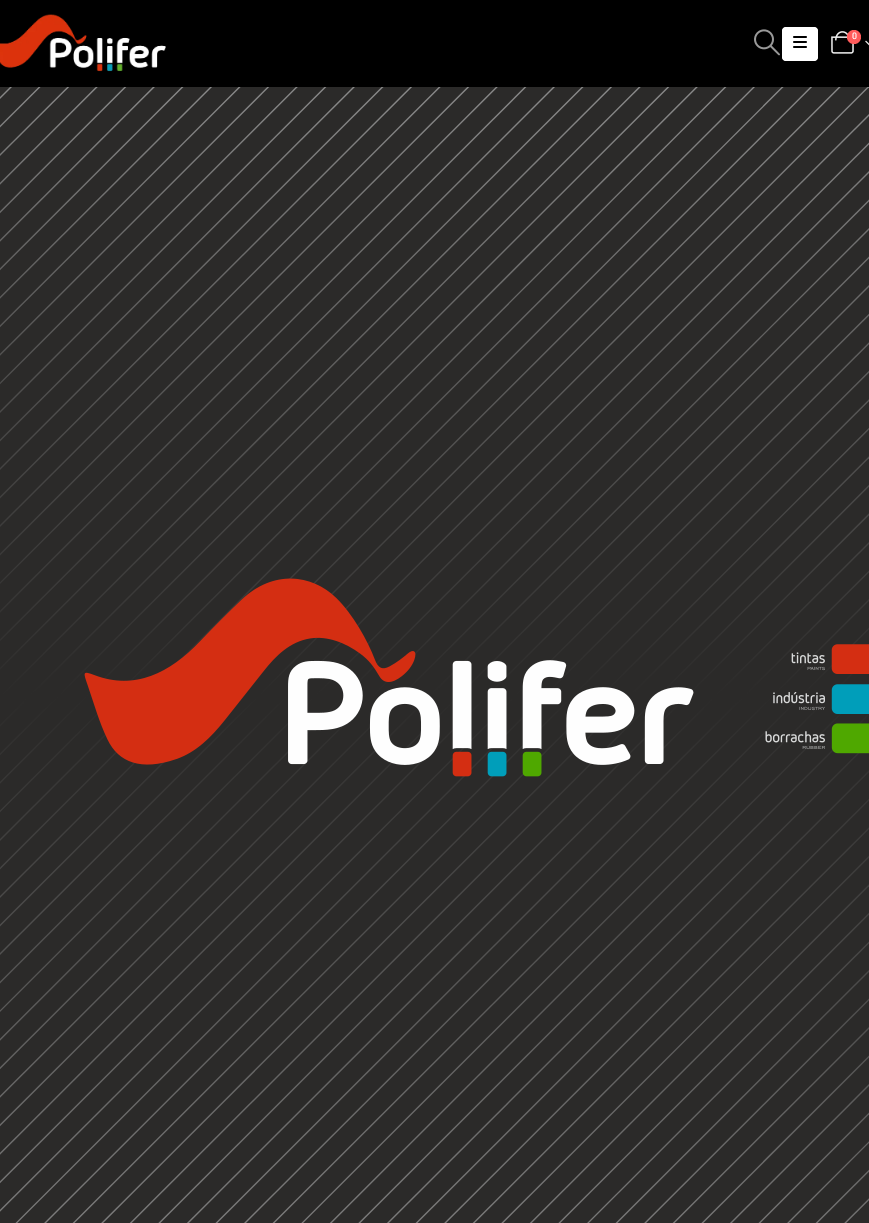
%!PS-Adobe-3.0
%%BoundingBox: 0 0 869 1223
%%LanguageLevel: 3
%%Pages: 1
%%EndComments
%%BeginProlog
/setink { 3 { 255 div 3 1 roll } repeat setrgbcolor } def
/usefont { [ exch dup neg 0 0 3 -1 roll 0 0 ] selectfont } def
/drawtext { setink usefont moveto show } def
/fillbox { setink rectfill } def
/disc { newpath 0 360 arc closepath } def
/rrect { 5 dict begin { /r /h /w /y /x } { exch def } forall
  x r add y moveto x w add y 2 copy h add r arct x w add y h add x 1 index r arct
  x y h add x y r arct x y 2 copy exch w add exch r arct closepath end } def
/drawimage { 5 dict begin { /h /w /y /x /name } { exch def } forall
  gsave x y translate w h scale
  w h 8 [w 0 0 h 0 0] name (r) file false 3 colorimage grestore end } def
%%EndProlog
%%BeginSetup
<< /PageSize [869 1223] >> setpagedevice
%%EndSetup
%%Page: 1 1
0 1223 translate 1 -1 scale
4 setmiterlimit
0 0 869 1223 0 0 0 fillbox
(assets/img1.rgb) 0 14 166 58 drawimage
(assets/img2.rgb) 754 29 26 27 drawimage
255 255 255 setink
782 27 36 34 4 rrect fill
(assets/img3.rgb) 793 36 14 12 drawimage
(assets/img4.rgb) 831 31 23 23 drawimage
255 91 91 setink
854 37 7 disc fill
(0) 852 39 /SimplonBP-Bold 9 255 255 255 drawtext
(assets/img5.rgb) 865 40 4 6 drawimage
(assets/img6.rgb) 0 87 869 1136 drawimage
(assets/img7.rgb) 84 578 610 199 drawimage
(assets/img8.rgb) 791 644 78 30 drawimage
(assets/img9.rgb) 773 684 96 30 drawimage
(assets/img10.rgb) 765 723 104 31 drawimage
showpage
%%EOF
